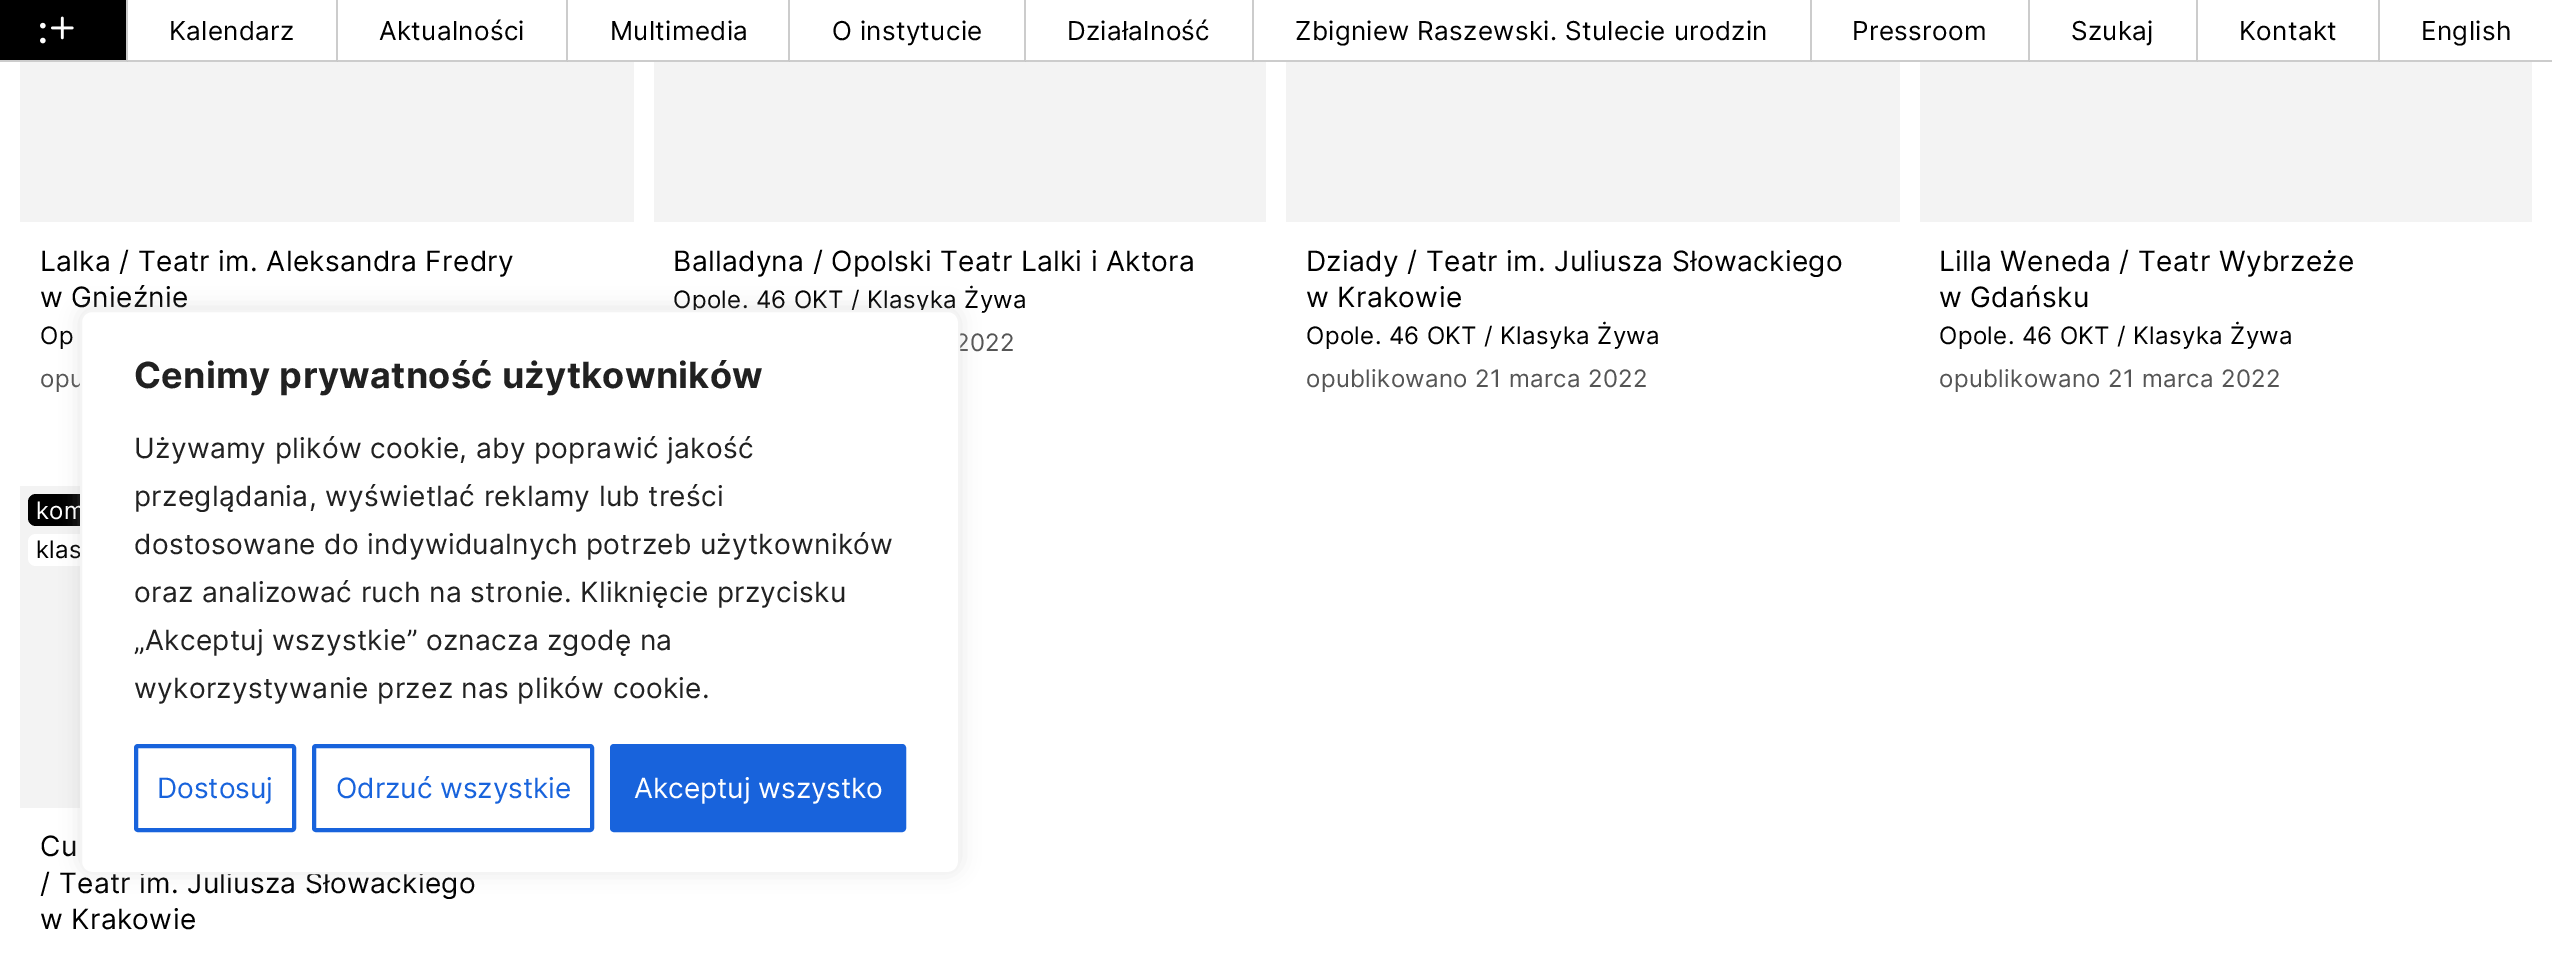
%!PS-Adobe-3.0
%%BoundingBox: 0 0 2552 954
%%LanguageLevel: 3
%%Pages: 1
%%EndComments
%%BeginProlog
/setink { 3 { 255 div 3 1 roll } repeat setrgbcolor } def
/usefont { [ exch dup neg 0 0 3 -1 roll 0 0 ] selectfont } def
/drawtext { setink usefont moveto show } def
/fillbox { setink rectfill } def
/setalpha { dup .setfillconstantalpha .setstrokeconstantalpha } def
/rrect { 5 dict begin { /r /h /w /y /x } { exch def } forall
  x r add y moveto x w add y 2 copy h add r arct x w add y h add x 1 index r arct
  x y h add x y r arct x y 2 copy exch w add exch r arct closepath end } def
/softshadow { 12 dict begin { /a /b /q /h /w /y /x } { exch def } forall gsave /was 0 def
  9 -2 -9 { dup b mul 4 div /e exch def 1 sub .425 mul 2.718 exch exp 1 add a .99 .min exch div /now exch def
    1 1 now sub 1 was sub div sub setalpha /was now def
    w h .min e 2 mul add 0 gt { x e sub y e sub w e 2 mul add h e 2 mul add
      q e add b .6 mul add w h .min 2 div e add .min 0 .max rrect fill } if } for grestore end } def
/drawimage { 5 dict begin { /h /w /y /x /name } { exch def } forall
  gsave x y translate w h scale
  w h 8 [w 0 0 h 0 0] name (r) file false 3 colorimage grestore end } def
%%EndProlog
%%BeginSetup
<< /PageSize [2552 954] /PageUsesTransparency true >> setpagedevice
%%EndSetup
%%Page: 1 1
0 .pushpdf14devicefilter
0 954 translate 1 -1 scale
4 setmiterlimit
0 0 2552 954 255 255 255 fillbox
204 204 204 setink
128 0 moveto 128 62 lineto 126 60 lineto 126 0 lineto closepath fill
0.2 setalpha
0 0 0 setink
128 62 moveto 0 62 lineto 0 60 lineto 126 60 lineto closepath fill
1 setalpha
0 0 126 60 0 0 0 fillbox
(assets/img1.rgb) 40 16 34 28 drawimage
204 204 204 setink
338 0 moveto 338 62 lineto 336 60 lineto 336 0 lineto closepath fill
0.2 setalpha
0 0 0 setink
338 62 moveto 128 62 lineto 128 60 lineto 336 60 lineto closepath fill
/Inter-Regular 26 usefont
1 setalpha
169 40 moveto 0.35 0 (Kalendarz) ashow
204 204 204 setink
568 0 moveto 568 62 lineto 566 60 lineto 566 0 lineto closepath fill
0.2 setalpha
0 0 0 setink
568 62 moveto 338 62 lineto 338 60 lineto 566 60 lineto closepath fill
1 setalpha
379 40 moveto 0.35 0 (Aktualności) ashow
204 204 204 setink
790 0 moveto 790 62 lineto 788 60 lineto 788 0 lineto closepath fill
0.2 setalpha
0 0 0 setink
790 62 moveto 568 62 lineto 568 60 lineto 788 60 lineto closepath fill
1 setalpha
610 40 moveto 0.35 0 (Multimedia) ashow
204 204 204 setink
1026 0 moveto 1026 62 lineto 1024 60 lineto 1024 0 lineto closepath fill
0.2 setalpha
0 0 0 setink
1026 62 moveto 790 62 lineto 790 60 lineto 1024 60 lineto closepath fill
1 setalpha
832 40 moveto 0.35 0 (O instytucie) ashow
204 204 204 setink
1254 0 moveto 1254 62 lineto 1252 60 lineto 1252 0 lineto closepath fill
0.2 setalpha
0 0 0 setink
1254 62 moveto 1026 62 lineto 1026 60 lineto 1252 60 lineto closepath fill
1 setalpha
1067 40 moveto 0.35 0 (Działalność) ashow
204 204 204 setink
1812 0 moveto 1812 62 lineto 1810 60 lineto 1810 0 lineto closepath fill
0.2 setalpha
0 0 0 setink
1812 62 moveto 1254 62 lineto 1254 60 lineto 1810 60 lineto closepath fill
1 setalpha
1295 40 moveto 0.35 0 (Zbigniew Raszewski. Stulecie urodzin) ashow
204 204 204 setink
2030 0 moveto 2030 62 lineto 2028 60 lineto 2028 0 lineto closepath fill
0.2 setalpha
0 0 0 setink
2030 62 moveto 1812 62 lineto 1812 60 lineto 2028 60 lineto closepath fill
1 setalpha
1852 40 moveto 0.35 0 (Pressroom) ashow
204 204 204 setink
2198 0 moveto 2198 62 lineto 2196 60 lineto 2196 0 lineto closepath fill
0.2 setalpha
0 0 0 setink
2198 62 moveto 2030 62 lineto 2030 60 lineto 2196 60 lineto closepath fill
1 setalpha
2071 40 moveto 0.35 0 (Szukaj) ashow
204 204 204 setink
2380 0 moveto 2380 62 lineto 2378 60 lineto 2378 0 lineto closepath fill
0.2 setalpha
0 0 0 setink
2380 62 moveto 2198 62 lineto 2198 60 lineto 2378 60 lineto closepath fill
1 setalpha
2239 40 moveto 0.35 0 (Kontakt) ashow
2380 60 172 2 204 204 204 fillbox
0 0 0 setink
2421 40 moveto 0.35 0 (English) ashow
20 62 614 160 243 243 243 fillbox
/Inter-Regular 28 usefont
0 0 0 setink
40 271 moveto 0.35 0 (Lalka / Teatr im. Aleksandra Fredry) ashow
40 307 moveto 0.35 0 (w Gnieźnie) ashow
/Inter-Regular 24 usefont
40 344 moveto 0.35 0 (Op) ashow
85 85 85 setink
40 387 moveto 0.35 0 (opu) ashow
654 62 612 160 243 243 243 fillbox
/Inter-Regular 28 usefont
0 0 0 setink
673 271 moveto 0.35 0 (Balladyna / Opolski Teatr Lalki i Aktora) ashow
/Inter-Regular 24 usefont
673 308 moveto 0.35 0 (Opole. 46 OKT / Klasyka Żywa) ashow
85 85 85 setink
955 351 moveto 0.35 0 (2022) ashow
1286 62 614 160 243 243 243 fillbox
/Inter-Regular 28 usefont
0 0 0 setink
1306 271 moveto 0.35 0 (Dziady / Teatr im. Juliusza Słowackiego) ashow
1306 307 moveto 0.35 0 (w Krakowie) ashow
/Inter-Regular 24 usefont
1306 344 moveto 0.35 0 (Opole. 46 OKT / Klasyka Żywa) ashow
85 85 85 setink
1306 387 moveto 0.35 0 (opublikowano 21 marca 2022) ashow
1920 62 612 160 243 243 243 fillbox
/Inter-Regular 28 usefont
0 0 0 setink
1939 271 moveto 0.35 0 (Lilla Weneda / Teatr Wybrzeże) ashow
1939 307 moveto 0.35 0 (w Gdańsku) ashow
/Inter-Regular 24 usefont
1939 344 moveto 0.35 0 (Opole. 46 OKT / Klasyka Żywa) ashow
85 85 85 setink
1939 387 moveto 0.35 0 (opublikowano 21 marca 2022) ashow
20 486 60 322 243 243 243 fillbox
0 0 0 setink
28 494 258 32 8 rrect fill
255 255 255 setink
36 519 moveto 0.35 0 (kom) ashow
28 534 172 32 8 rrect fill
0 0 0 setink
36 558 moveto 0.35 0 (klas) ashow
/Inter-Regular 28 usefont
40 856 moveto 0.35 0 (Cu) ashow
40 893 moveto 0.35 0 (/ Teatr im. Juliusza Słowackiego) ashow
40 929 moveto 0.35 0 (w Krakowie) ashow
172 171 171 setink
80 308 880 564 12 10 0.3 softshadow
255 255 255 setink
81 311 878 562 11 rrect gsave fill grestore
244 244 244 setink
2 setlinewidth
stroke
/Inter-Bold 36 usefont
33 33 33 setink
134 388 moveto 0.35 0 (Cenimy prywatność użytkowników) ashow
/Inter-Regular 28 usefont
134 458 moveto 0.35 0 (Używamy plików cookie, aby poprawić jakość) ashow
134 506 moveto 0.35 0 (przeglądania, wyświetlać reklamy lub treści) ashow
134 554 moveto 0.35 0 (dostosowane do indywidualnych potrzeb użytkowników) ashow
134 602 moveto 0.35 0 (oraz analizować ruch na stronie. Kliknięcie przycisku) ashow
134 650 moveto 0.35 0 („Akceptuj wszystkie” oznacza zgodę na) ashow
134 698 moveto 0.35 0 (wykorzystywanie przez nas plików cookie.) ashow
24 99 220 setink
4 setlinewidth
136 746 158 84 2 rrect stroke
(Dostosuj) 157 798 /Inter-Regular 28 24 99 220 drawtext
314 746 278 84 2 rrect stroke
(Odrzuć wszystkie) 336 798 /Inter-Regular 28 24 99 220 drawtext
612 746 292 84 2 rrect gsave fill grestore
stroke
(Akceptuj wszystko) 634 798 /Inter-Regular 28 255 255 255 drawtext
.poppdf14devicefilter showpage
%%EOF
